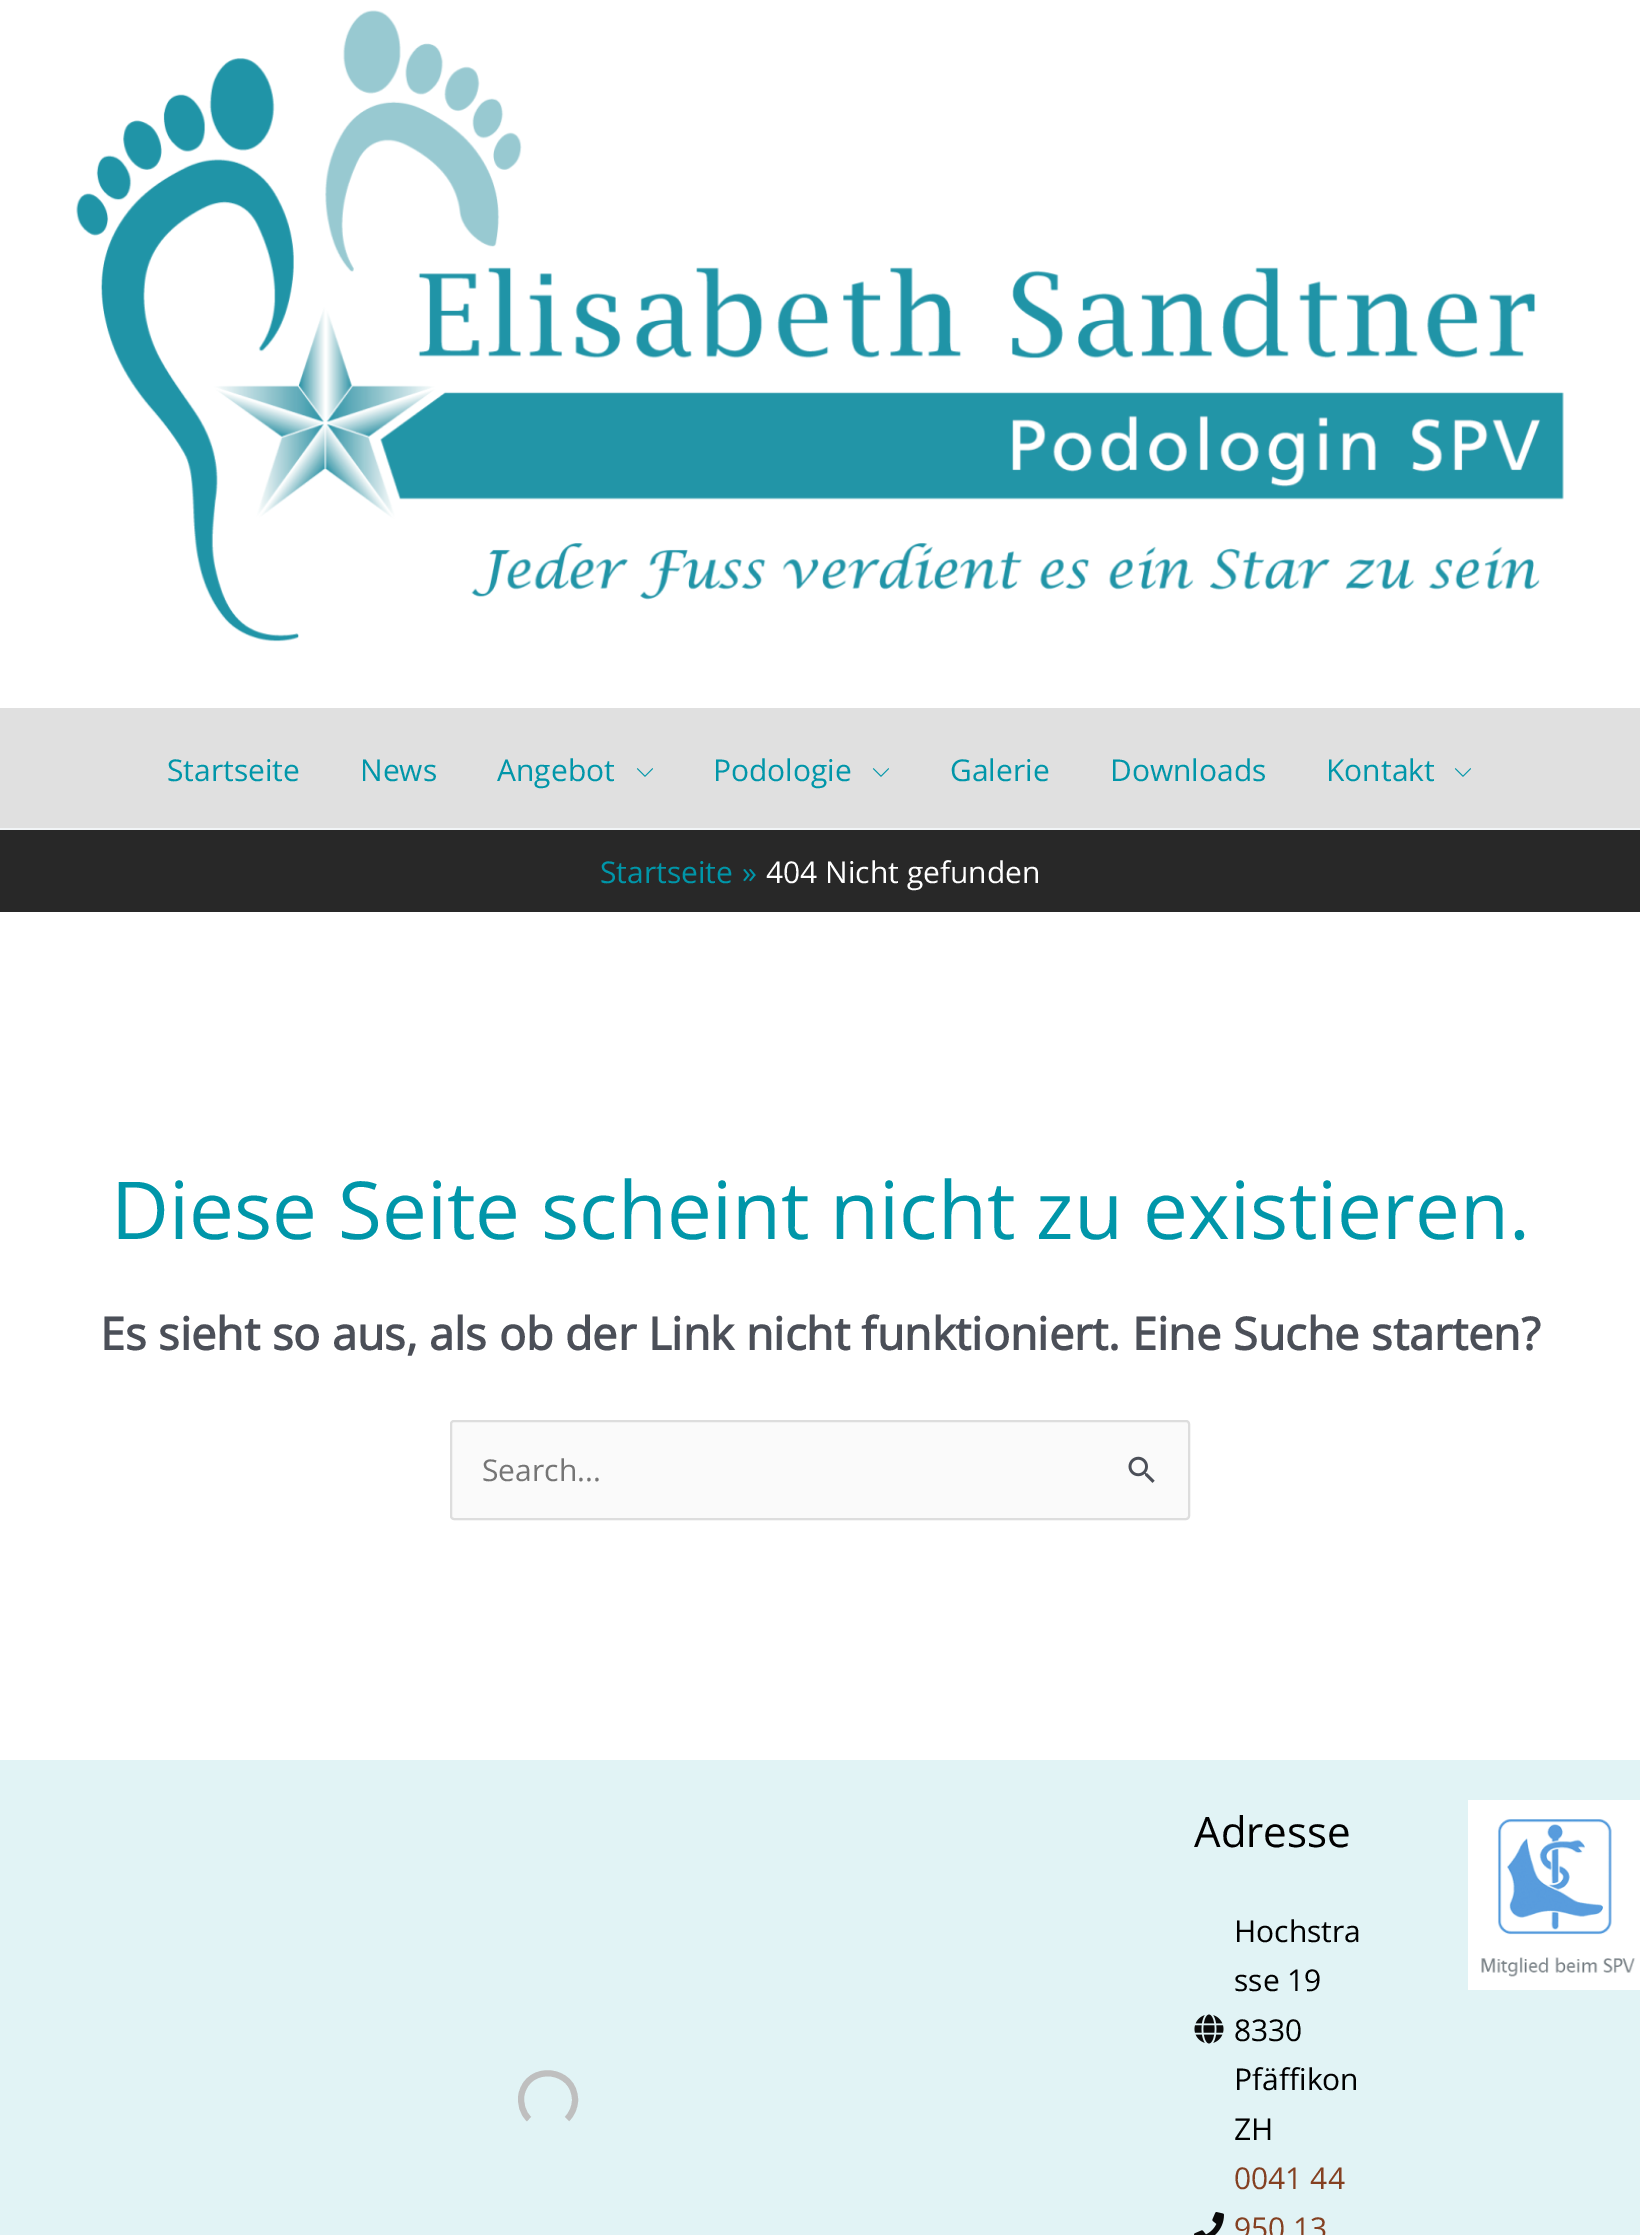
%!PS-Adobe-3.0
%%BoundingBox: 0 0 1640 2235
%%LanguageLevel: 3
%%Pages: 1
%%EndComments
%%BeginProlog
/setink { 3 { 255 div 3 1 roll } repeat setrgbcolor } def
/usefont { [ exch dup neg 0 0 3 -1 roll 0 0 ] selectfont } def
/drawtext { setink usefont moveto show } def
/fillbox { setink rectfill } def
/rrect { 5 dict begin { /r /h /w /y /x } { exch def } forall
  x r add y moveto x w add y 2 copy h add r arct x w add y h add x 1 index r arct
  x y h add x y r arct x y 2 copy exch w add exch r arct closepath end } def
/drawimage { 5 dict begin { /h /w /y /x /name } { exch def } forall
  gsave x y translate w h scale
  w h 8 [w 0 0 h 0 0] name (r) file false 3 colorimage grestore end } def
%%EndProlog
%%BeginSetup
<< /PageSize [1640 2235] >> setpagedevice
%%EndSetup
%%Page: 1 1
0 2235 translate 1 -1 scale
4 setmiterlimit
0 0 1640 2235 255 255 255 fillbox
(assets/img1.rgb) 76 10 1488 632 drawimage
0 708 1640 120 224 224 224 fillbox
0 828 1640 2 242 245 247 fillbox
(Startseite) 167 781 /OpenSans-Regular 30 0 150 169 drawtext
(News) 360 781 /OpenSans-Regular 30 0 150 169 drawtext
(Angebot) 497 781 /OpenSans-Regular 30 0 150 169 drawtext
(assets/img2.rgb) 636 768 17 9 drawimage
(Podologie) 713 781 /OpenSans-Regular 30 0 150 169 drawtext
(assets/img2.rgb) 872 768 17 9 drawimage
(Galerie) 950 781 /OpenSans-Regular 30 0 150 169 drawtext
(Downloads) 1110 781 /OpenSans-Regular 30 0 150 169 drawtext
(Kontakt) 1326 781 /OpenSans-Regular 30 0 150 169 drawtext
(assets/img2.rgb) 1454 768 17 9 drawimage
0 830 1640 82 40 40 40 fillbox
(Startseite) 600 883 /OpenSans-Regular 30 0 150 169 drawtext
(») 742 883 /OpenSans-Regular 30 0 150 169 drawtext
(404 Nicht gefunden) 766 883 /OpenSans-Regular 30 255 255 255 drawtext
(Diese Seite scheint nicht zu existieren.) 111 1239 /OpenSans-Regular 80 0 150 169 drawtext
(Es sieht so aus, als ob der Link nicht funktioniert. Eine Suche starten?) 100 1350 /OpenSans-Bold 45 75 79 88 drawtext
250 250 250 setink
451 1421 738 98 3 rrect gsave fill grestore
221 221 221 setink
2 setlinewidth
stroke
(Search...) 482 1481 /OpenSans-Regular 30 117 117 117 drawtext
(assets/img3.rgb) 1128 1456 27 27 drawimage
0 1760 1640 475 225 243 245 fillbox
191 191 191 setink
6 setlinewidth
529 2119 moveto 522.5 2113 520 2103.5 521.5 2094.5 curveto 528 2063 575 2068 575 2100 curveto 575 2107 572 2114 567 2119 curveto stroke
(Adresse) 1194 1847 /OpenSans-Regular 42 0 0 0 drawtext
(assets/img4.rgb) 1194 2014 30 30 drawimage
(Hochstra) 1234 1942 /OpenSans-Regular 30 0 0 0 drawtext
(sse 19) 1234 1991 /OpenSans-Regular 30 0 0 0 drawtext
(8330) 1234 2041 /OpenSans-Regular 30 0 0 0 drawtext
(Pfäffikon) 1234 2090 /OpenSans-Regular 30 0 0 0 drawtext
(ZH) 1234 2140 /OpenSans-Regular 30 0 0 0 drawtext
(assets/img5.rgb) 1194 2212 30 23 drawimage
(0041 44) 1234 2189 /OpenSans-Regular 30 132 64 33 drawtext
(950 13) 1234 2239 /OpenSans-Regular 30 132 64 33 drawtext
(assets/img6.rgb) 1468 1800 172 190 drawimage
showpage
%%EOF
